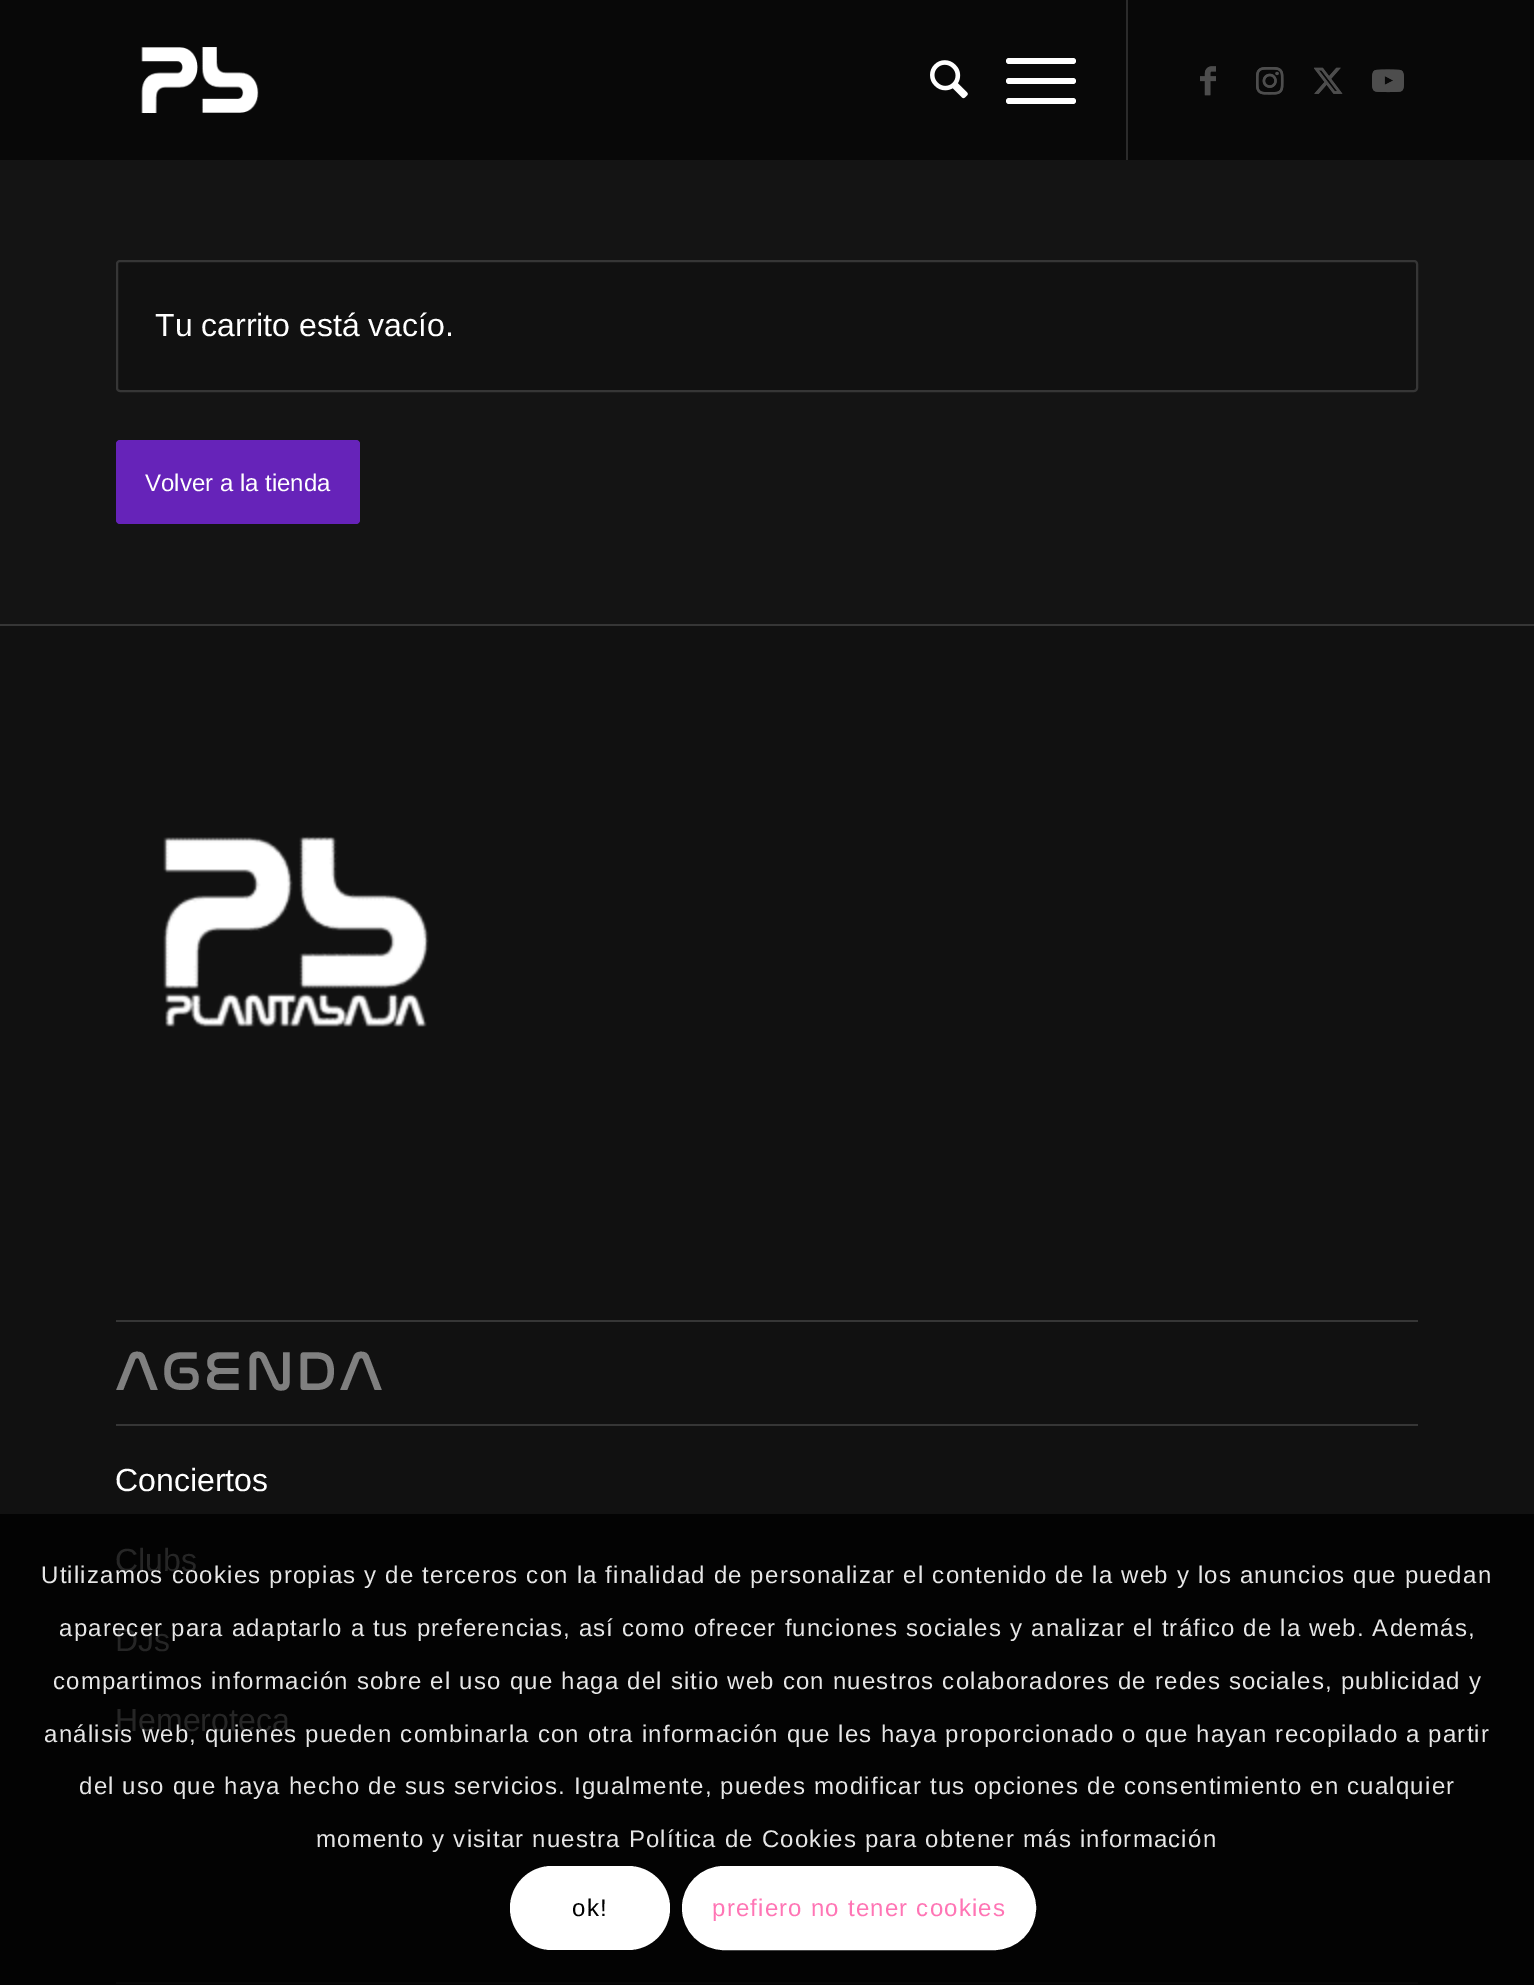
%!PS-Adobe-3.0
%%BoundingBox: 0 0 1534 1985
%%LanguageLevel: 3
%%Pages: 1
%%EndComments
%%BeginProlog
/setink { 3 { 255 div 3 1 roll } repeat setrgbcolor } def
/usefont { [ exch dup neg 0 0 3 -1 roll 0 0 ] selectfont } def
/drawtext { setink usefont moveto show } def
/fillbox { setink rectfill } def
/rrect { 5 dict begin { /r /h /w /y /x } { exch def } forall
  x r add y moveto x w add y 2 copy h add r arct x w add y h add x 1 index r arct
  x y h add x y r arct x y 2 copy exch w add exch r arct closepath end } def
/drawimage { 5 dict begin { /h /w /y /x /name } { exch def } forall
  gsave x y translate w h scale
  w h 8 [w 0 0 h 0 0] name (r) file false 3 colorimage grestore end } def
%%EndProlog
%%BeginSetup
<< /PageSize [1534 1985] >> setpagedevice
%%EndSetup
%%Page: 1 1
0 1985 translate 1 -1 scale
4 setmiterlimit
0 0 1534 1985 20 20 20 fillbox
0 0 1534 160 8 8 8 fillbox
(assets/img1.rgb) 141 47 118 67 drawimage
1126 0 2 160 43 43 43 fillbox
(assets/img2.rgb) 930 60 38 39 drawimage
255 255 255 setink
1006 78 70 6 3 rrect fill
1006 58 70 6 3 rrect fill
1006 98 70 6 3 rrect fill
(assets/img3.rgb) 1200 66 16 30 drawimage
(assets/img4.rgb) 1256 67 28 28 drawimage
(assets/img5.rgb) 1314 67 29 27 drawimage
(assets/img6.rgb) 1372 69 32 24 drawimage
(assets/img7.rgb) 1200 66 16 30 drawimage
(assets/img8.rgb) 1256 67 28 28 drawimage
(assets/img9.rgb) 1314 67 29 27 drawimage
(assets/img10.rgb) 1372 69 32 24 drawimage
17 17 17 setink
117 261 1300 130 3 rrect gsave fill grestore
54 54 54 setink
2 setlinewidth
stroke
(Tu carrito está vacío.) 155 336 /LiberationSans-Regular 32 255 255 255 drawtext
102 35 185 setink
116 440 244 84 4 rrect fill
(Volver a la tienda) 145 491 /LiberationSans-Regular 24 255 255 255 drawtext
0 626 1534 888 17 17 17 fillbox
0 1514 1534 471 3 3 3 fillbox
0 624 1534 2 54 54 54 fillbox
(assets/img11.rgb) 163 836 266 192 drawimage
116 1320 1302 2 54 54 54 fillbox
116 1424 1302 2 54 54 54 fillbox
/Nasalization-Regular 56 usefont
128 128 128 setink
115 1390 moveto 2 0 (AGENDA) ashow
(Conciertos) 115 1491 /LiberationSans-Regular 32 255 255 255 drawtext
(Clubs) 115 1571 /LiberationSans-Regular 32 38 38 38 drawtext
(DJs) 115 1651 /LiberationSans-Regular 32 38 38 38 drawtext
(Hemeroteca) 115 1731 /LiberationSans-Regular 32 38 38 38 drawtext
116 1982 1302 2 8 8 8 fillbox
/LiberationSans-Regular 24 usefont
230 230 230 setink
41 1583 moveto 1.2 0 (Utilizamos cookies propias y de terceros con la finalidad de personalizar el contenido de la web y los anuncios que puedan) ashow
59 1636 moveto 1.2 0 (aparecer para adaptarlo a tus preferencias, así como ofrecer funciones sociales y analizar el tráfico de la web. Además,) ashow
53 1689 moveto 1.2 0 (compartimos información sobre el uso que haga del sitio web con nuestros colaboradores de redes sociales, publicidad y) ashow
44 1742 moveto 1.2 0 (análisis web, quienes pueden combinarla con otra información que les haya proporcionado o que hayan recopilado a partir) ashow
79 1794 moveto 1.2 0 (del uso que haya hecho de sus servicios. Igualmente, puedes modificar tus opciones de consentimiento en cualquier) ashow
316 1847 moveto 1.2 0 (momento y visitar nuestra Política de Cookies para obtener más información) ashow
255 255 255 setink
510 1866 160 84 42 rrect fill
0 0 0 setink
572 1916 moveto 1.2 0 (ok!) ashow
255 255 255 setink
684 1868 350 80 40 rrect gsave fill grestore
4 setlinewidth
stroke
255 117 181 setink
712 1916 moveto 1.2 0 (prefiero no tener cookies) ashow
showpage
%%EOF
